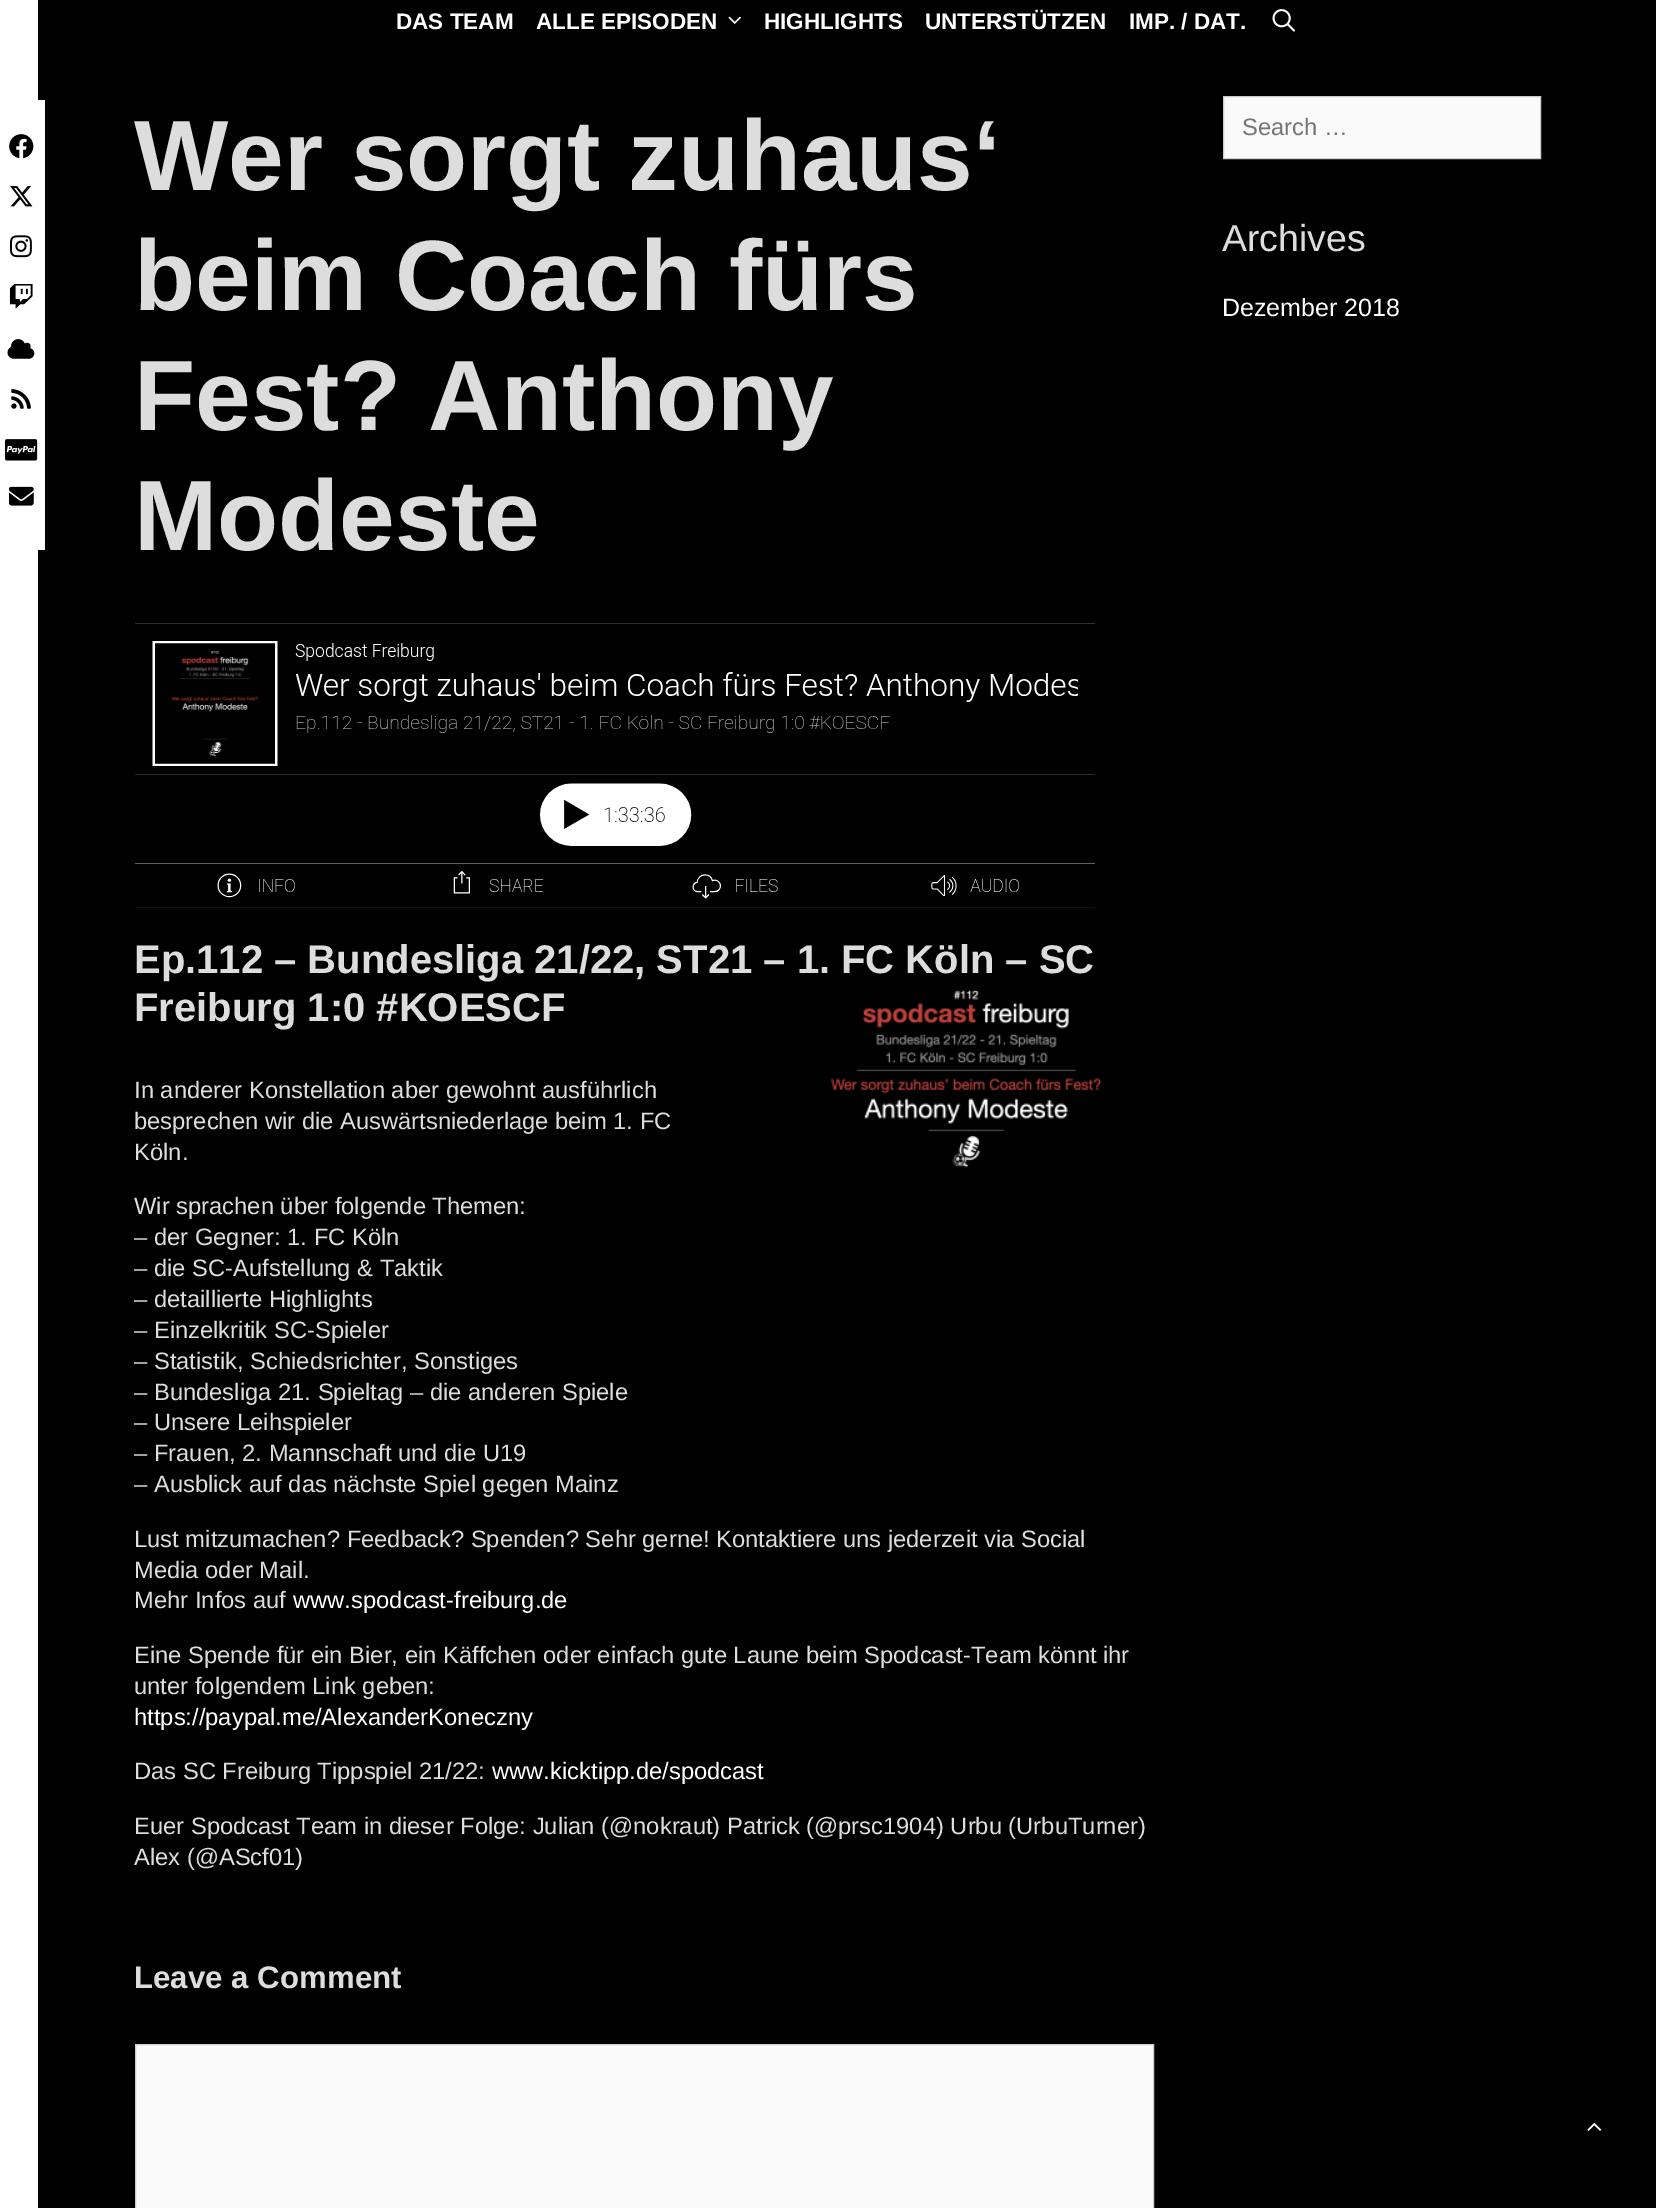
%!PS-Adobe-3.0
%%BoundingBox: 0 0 1656 2208
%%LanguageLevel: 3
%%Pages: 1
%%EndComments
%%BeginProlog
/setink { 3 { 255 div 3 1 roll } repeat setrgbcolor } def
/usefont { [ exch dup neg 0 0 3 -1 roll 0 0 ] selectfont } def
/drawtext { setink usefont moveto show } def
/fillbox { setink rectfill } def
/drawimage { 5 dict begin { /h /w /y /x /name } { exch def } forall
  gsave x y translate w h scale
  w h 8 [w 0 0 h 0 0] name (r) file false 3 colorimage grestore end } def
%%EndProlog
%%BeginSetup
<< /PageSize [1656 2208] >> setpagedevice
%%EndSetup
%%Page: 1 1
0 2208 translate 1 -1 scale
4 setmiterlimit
0 0 1656 2208 255 255 255 fillbox
38 0 1618 2208 0 0 0 fillbox
38 100 7 450 255 255 255 fillbox
(assets/img1.rgb) 9 134 25 25 drawimage
(assets/img2.rgb) 10 186 23 21 drawimage
(assets/img3.rgb) 10 235 22 23 drawimage
(assets/img4.rgb) 9 284 24 25 drawimage
(assets/img5.rgb) 7 339 28 20 drawimage
(assets/img6.rgb) 11 389 20 20 drawimage
(assets/img7.rgb) 5 439 33 22 drawimage
(assets/img8.rgb) 9 486 25 20 drawimage
(DAS TEAM) 396 29 /LiberationSans-Bold 22.5 255 255 255 drawtext
(ALLE EPISODEN) 536 29 /LiberationSans-Bold 22.5 255 255 255 drawtext
(assets/img9.rgb) 728 16 13 8 drawimage
(HIGHLIGHTS) 764 29 /LiberationSans-Bold 22.5 255 255 255 drawtext
(UNTERSTÜTZEN) 925 29 /LiberationSans-Bold 22.5 255 255 255 drawtext
(IMP. / DAT.) 1129 29 /LiberationSans-Bold 22.5 255 255 255 drawtext
(assets/img10.rgb) 1272 9 23 23 drawimage
(Wer sorgt zuhaus‘) 134 190 /LiberationSans-Bold 100 221 221 221 drawtext
(beim Coach fürs) 134 310 /LiberationSans-Bold 100 221 221 221 drawtext
(Fest? Anthony) 134 430 /LiberationSans-Bold 100 221 221 221 drawtext
(Modeste) 134 550 /LiberationSans-Bold 100 221 221 221 drawtext
(assets/img11.rgb) 135 623 960 285 drawimage
(Ep.112 – Bundesliga 21/22, ST21 – 1. FC Köln – SC) 134 973 /LiberationSans-Bold 40 221 221 221 drawtext
(Freiburg 1:0 #KOESCF) 134 1021 /LiberationSans-Bold 40 221 221 221 drawtext
(assets/img12.rgb) 831 989 271 179 drawimage
(In anderer Konstellation aber gewohnt ausführlich) 134 1098 /LiberationSans-Regular 23.75 221 221 221 drawtext
(besprechen wir die Auswärtsniederlage beim 1. FC) 134 1129 /LiberationSans-Regular 23.75 221 221 221 drawtext
(Köln.) 134 1160 /LiberationSans-Regular 23.75 221 221 221 drawtext
(Wir sprachen über folgende Themen:) 134 1214 /LiberationSans-Regular 23.75 221 221 221 drawtext
(– der Gegner: 1. FC Köln) 134 1245 /LiberationSans-Regular 23.75 221 221 221 drawtext
(– die SC-Aufstellung & Taktik) 134 1276 /LiberationSans-Regular 23.75 221 221 221 drawtext
(– detaillierte Highlights) 134 1307 /LiberationSans-Regular 23.75 221 221 221 drawtext
(– Einzelkritik SC-Spieler) 134 1338 /LiberationSans-Regular 23.75 221 221 221 drawtext
(– Statistik, Schiedsrichter, Sonstiges) 134 1369 /LiberationSans-Regular 23.75 221 221 221 drawtext
(– Bundesliga 21. Spieltag – die anderen Spiele) 134 1400 /LiberationSans-Regular 23.75 221 221 221 drawtext
(– Unsere Leihspieler) 134 1430 /LiberationSans-Regular 23.75 221 221 221 drawtext
(– Frauen, 2. Mannschaft und die U19) 134 1461 /LiberationSans-Regular 23.75 221 221 221 drawtext
(– Ausblick auf das nächste Spiel gegen Mainz) 134 1492 /LiberationSans-Regular 23.75 221 221 221 drawtext
(Lust mitzumachen? Feedback? Spenden? Sehr gerne! Kontaktiere uns jederzeit via Social) 134 1547 /LiberationSans-Regular 23.75 221 221 221 drawtext
(Media oder Mail.) 134 1578 /LiberationSans-Regular 23.75 221 221 221 drawtext
(Mehr Infos auf) 134 1608 /LiberationSans-Regular 23.75 221 221 221 drawtext
(www.spodcast-freiburg.de) 293 1608 /LiberationSans-Regular 23.75 255 255 255 drawtext
(Eine Spende für ein Bier, ein Käffchen oder einfach gute Laune beim Spodcast-Team könnt ihr) 134 1663 /LiberationSans-Regular 23.75 221 221 221 drawtext
(unter folgendem Link geben:) 134 1694 /LiberationSans-Regular 23.75 221 221 221 drawtext
(https://paypal.me/AlexanderKoneczny) 134 1725 /LiberationSans-Regular 23.75 255 255 255 drawtext
(Das SC Freiburg Tippspiel 21/22:) 134 1779 /LiberationSans-Regular 23.75 221 221 221 drawtext
(www.kicktipp.de/spodcast) 492 1779 /LiberationSans-Regular 23.75 255 255 255 drawtext
(Euer Spodcast Team in dieser Folge: Julian \(@nokraut\) Patrick \(@prsc1904\) Urbu \(UrbuTurner\)) 134 1834 /LiberationSans-Regular 23.75 221 221 221 drawtext
(Alex \(@AScf01\)) 134 1865 /LiberationSans-Regular 23.75 221 221 221 drawtext
(Leave a Comment) 134 1988 /LiberationSans-Bold 31.25 221 221 221 drawtext
250 250 250 setink
135.5 2044.5 moveto 1153.5 2044.5 lineto 1153.5 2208.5 lineto 135.5 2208.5 lineto closepath gsave fill grestore
204 204 204 setink
stroke
250 250 250 setink
1223.5 96.5 moveto 1540.5 96.5 lineto 1540.5 158.5 lineto 1223.5 158.5 lineto closepath gsave fill grestore
204 204 204 setink
stroke
(Search …) 1242 135 /LiberationSans-Regular 23.75 117 117 117 drawtext
(Archives) 1222 251 /LiberationSans-Regular 37.5 221 221 221 drawtext
(Dezember 2018) 1222 316 /LiberationSans-Regular 25 255 255 255 drawtext
(assets/img13.rgb) 1587 2122 15 9 drawimage
showpage
%%EOF
